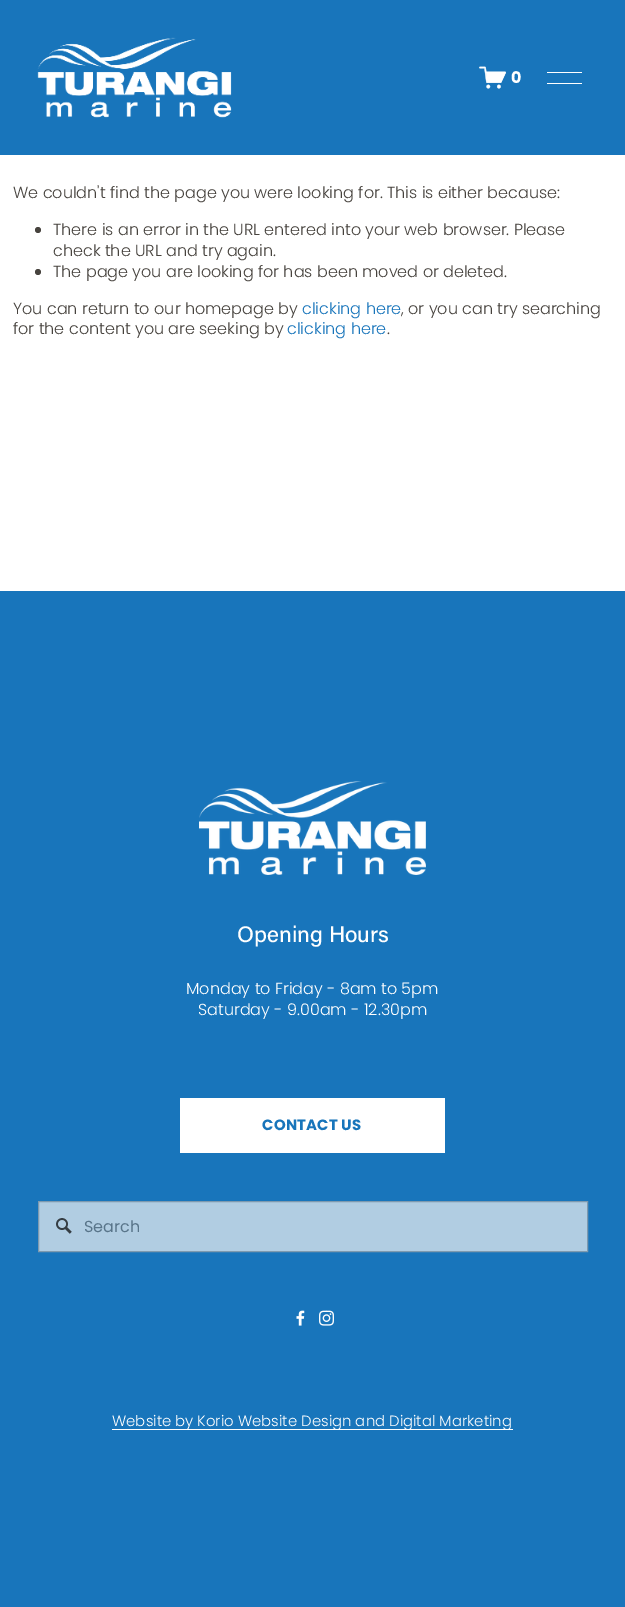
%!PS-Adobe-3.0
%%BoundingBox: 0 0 625 1607
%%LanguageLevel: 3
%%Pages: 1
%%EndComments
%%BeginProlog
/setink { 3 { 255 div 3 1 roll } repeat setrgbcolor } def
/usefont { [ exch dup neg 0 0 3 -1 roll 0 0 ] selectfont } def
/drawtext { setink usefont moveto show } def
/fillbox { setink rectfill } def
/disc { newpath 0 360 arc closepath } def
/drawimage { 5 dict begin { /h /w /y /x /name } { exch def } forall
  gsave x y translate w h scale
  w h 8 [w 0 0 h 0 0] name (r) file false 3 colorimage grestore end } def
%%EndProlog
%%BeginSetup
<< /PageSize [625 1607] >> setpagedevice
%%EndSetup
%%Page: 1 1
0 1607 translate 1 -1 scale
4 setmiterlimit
0 0 625 1607 255 255 255 fillbox
0 0 625 155 24 117 187 fillbox
(assets/img1.rgb) 37 37 195 81 drawimage
(assets/img2.rgb) 479 66 27 23 drawimage
(0) 511 83 /Poppins-Bold 16 255 255 255 drawtext
547 72 35 1 255 255 255 fillbox
547 83 35 1 255 255 255 fillbox
(We couldn't find the page you were looking for. This is either because:) 13 198 /Poppins-Light 16 71 67 62 drawtext
38 230 3 disc fill
(There is an error in the URL entered into your web browser. Please) 53 235 /Poppins-Light 16 71 67 62 drawtext
(check the URL and try again.) 53 256 /Poppins-Light 16 71 67 62 drawtext
38 272 3 disc fill
(The page you are looking for has been moved or deleted.) 53 277 /Poppins-Light 16 71 67 62 drawtext
(You can return to our homepage by) 13 314 /Poppins-Light 16 71 67 62 drawtext
(clicking here) 302 314 /Poppins-Light 16 24 117 187 drawtext
(, or you can try searching) 401 314 /Poppins-Light 16 71 67 62 drawtext
(for the content you are seeking by) 13 334 /Poppins-Light 16 71 67 62 drawtext
(clicking here) 287 334 /Poppins-Light 16 24 117 187 drawtext
(.) 387 334 /Poppins-Light 16 71 67 62 drawtext
0 591 625 1016 24 117 187 fillbox
(assets/img3.rgb) 199 781 227 94 drawimage
(Opening Hours) 237 942 /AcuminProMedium-Medium 22.5 255 255 255 drawtext
(Monday to Friday - 8am to 5pm) 186 994 /Poppins-Light 16 255 255 255 drawtext
(Saturday - 9.00am - 12.30pm) 198 1015 /Poppins-Light 16 255 255 255 drawtext
180 1098 265 55 255 255 255 fillbox
/Poppins-Bold 14.9 usefont
24 117 187 setink
262 1130 moveto 0.25 0 (CONTACT US) ashow
39 1202 548 49 177 205 226 fillbox
(assets/img4.rgb) 56 1218 16 16 drawimage
126 154 175 setink
38.5 1201.5 549 50 rectstroke
(Search) 84 1232 /Poppins-Regular 16 89 117 138 drawtext
(assets/img5.rgb) 296 1310 9 16 drawimage
(assets/img6.rgb) 319 1310 15 16 drawimage
112 1429 401 1 255 255 255 fillbox
(Website by Korio Website Design and Digital Marketing) 112 1426 /Poppins-Light 14.9 255 255 255 drawtext
showpage
%%EOF
